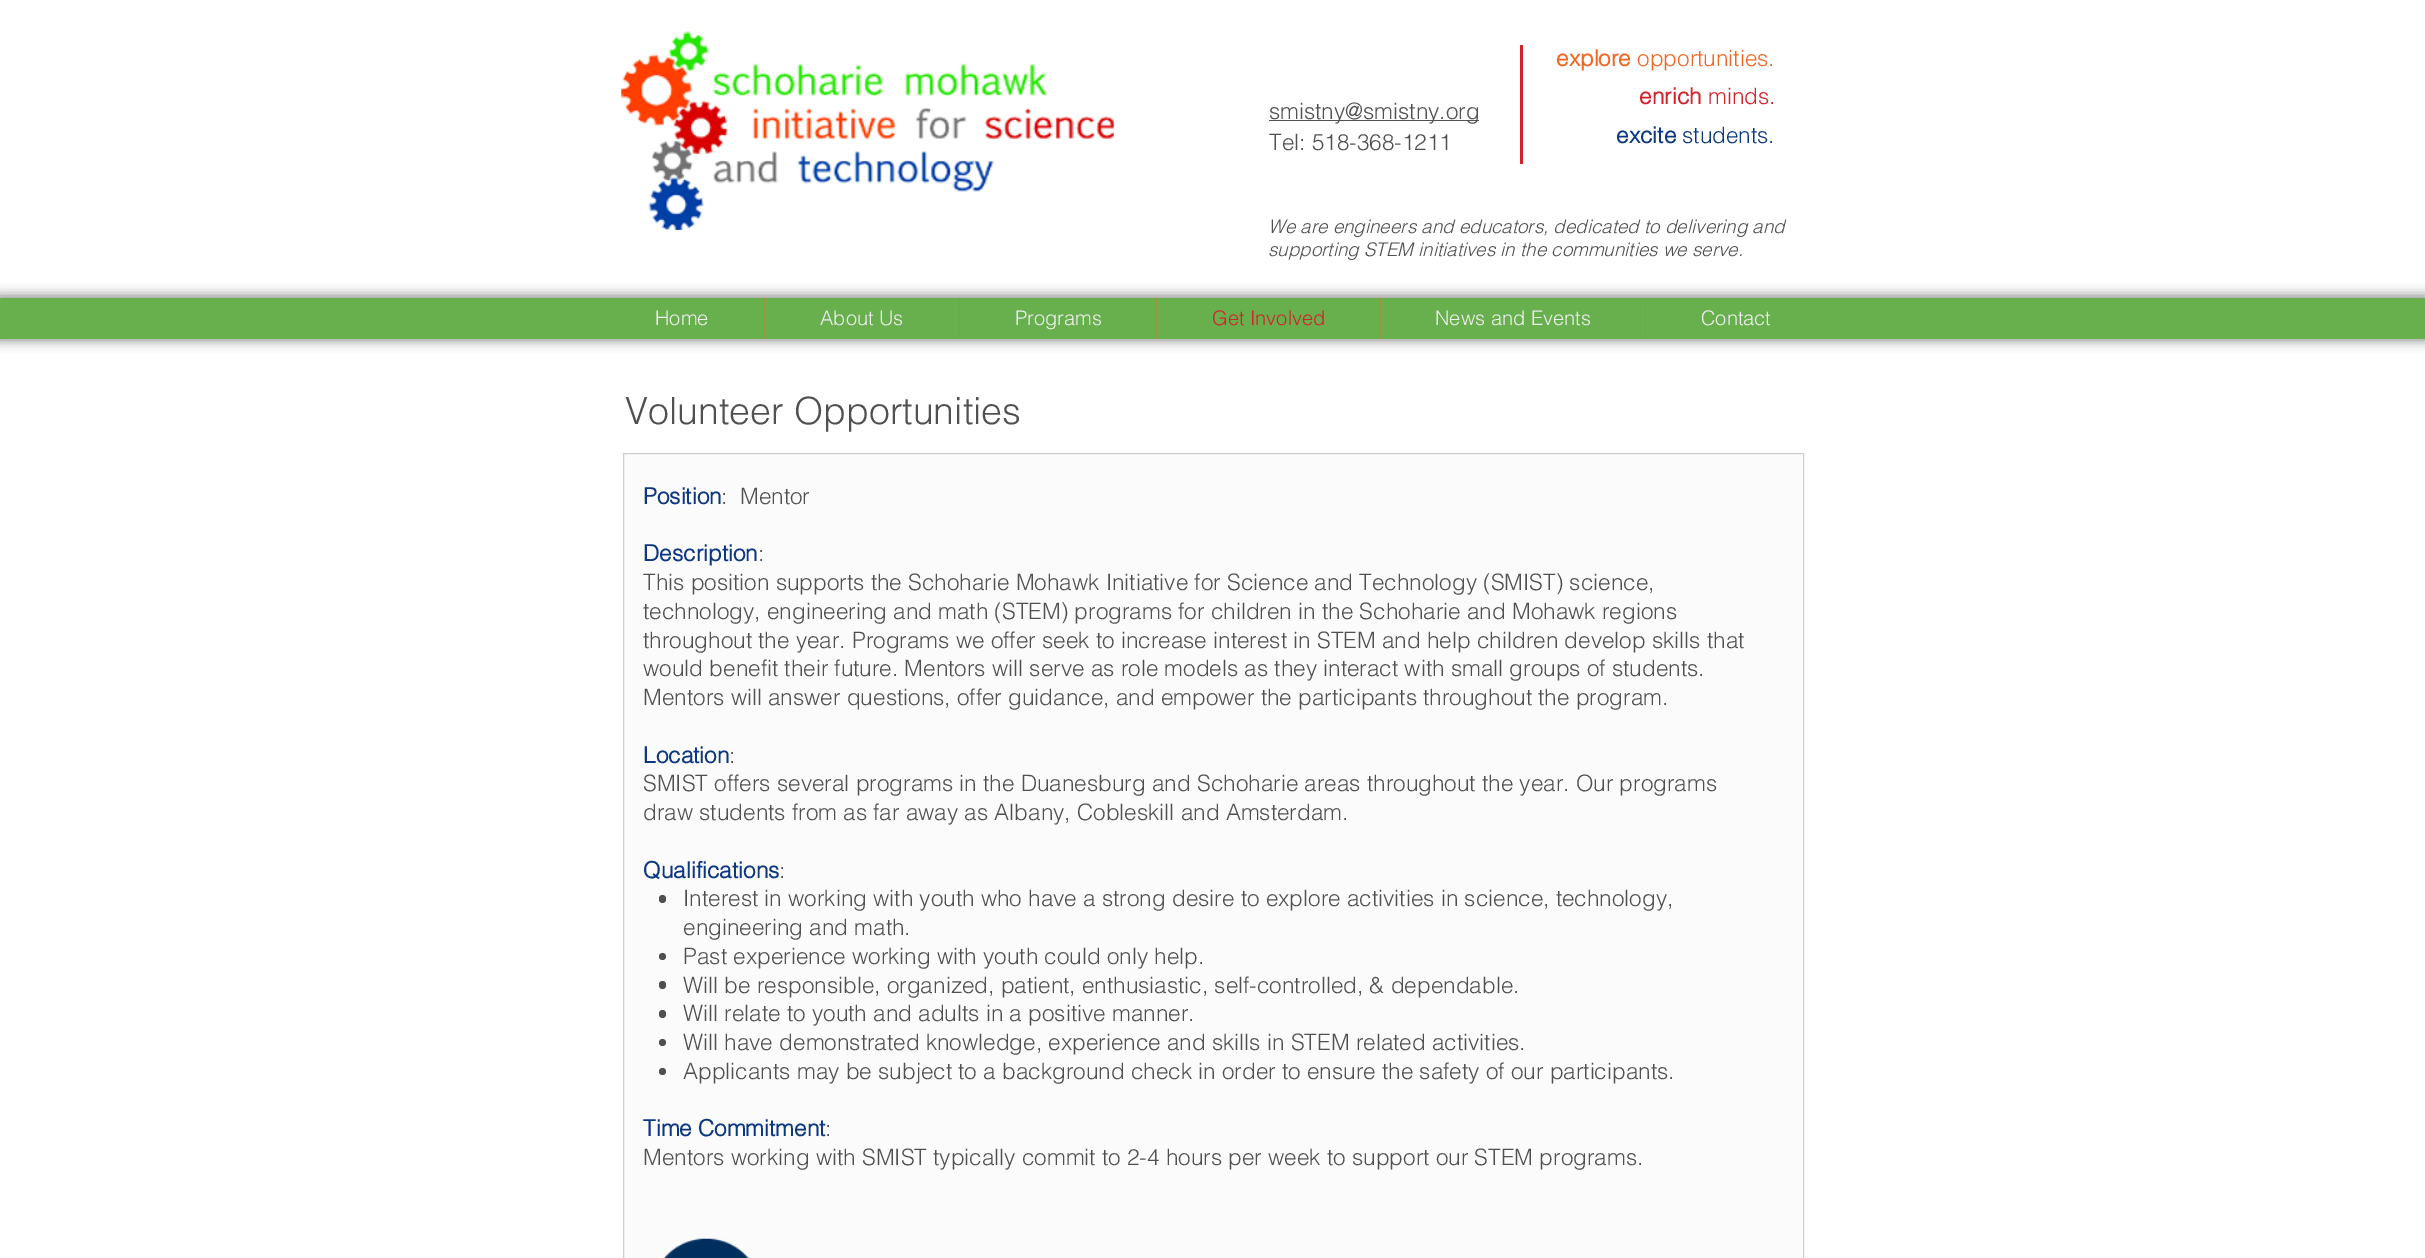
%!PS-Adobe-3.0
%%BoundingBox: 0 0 2425 1258
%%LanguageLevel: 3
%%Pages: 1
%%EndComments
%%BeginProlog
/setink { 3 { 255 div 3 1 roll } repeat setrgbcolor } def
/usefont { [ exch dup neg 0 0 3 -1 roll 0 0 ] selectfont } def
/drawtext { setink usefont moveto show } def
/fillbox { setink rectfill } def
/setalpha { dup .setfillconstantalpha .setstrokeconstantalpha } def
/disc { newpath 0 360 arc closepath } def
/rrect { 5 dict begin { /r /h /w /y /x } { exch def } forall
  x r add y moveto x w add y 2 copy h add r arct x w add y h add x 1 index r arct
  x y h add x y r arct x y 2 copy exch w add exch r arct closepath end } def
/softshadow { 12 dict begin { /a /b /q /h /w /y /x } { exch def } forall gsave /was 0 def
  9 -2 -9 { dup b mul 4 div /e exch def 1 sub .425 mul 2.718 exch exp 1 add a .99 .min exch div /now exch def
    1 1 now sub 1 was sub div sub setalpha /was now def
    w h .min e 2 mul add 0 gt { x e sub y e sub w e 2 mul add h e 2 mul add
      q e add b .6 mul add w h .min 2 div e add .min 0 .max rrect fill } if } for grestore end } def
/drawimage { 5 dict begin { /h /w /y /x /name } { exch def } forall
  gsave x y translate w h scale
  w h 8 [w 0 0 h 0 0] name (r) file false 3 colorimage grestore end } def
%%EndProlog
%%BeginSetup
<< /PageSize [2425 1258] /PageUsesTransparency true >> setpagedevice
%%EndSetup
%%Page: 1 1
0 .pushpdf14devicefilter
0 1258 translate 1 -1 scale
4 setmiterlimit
0 0 2425 1258 255 255 255 fillbox
(assets/img1.rgb) 621 31 493 199 drawimage
1269 120 210 1 80 80 80 fillbox
(smistny@smistny.org) 1269 119 /helvetica-Light 22.5 80 80 80 drawtext
(Tel: 518-368-1211) 1269 150 /helvetica-Light 22.5 80 80 80 drawtext
1520 45 3 119 210 35 42 fillbox
(explore) 1556 66 /helvetica-Bold 22.5 242 101 34 drawtext
(opportunities.) 1637 66 /helvetica-Light 22.5 242 101 34 drawtext
(enrich) 1639 104 /helvetica-Bold 22.5 210 35 42 drawtext
(minds.) 1708 104 /helvetica-Light 22.5 210 35 42 drawtext
(excite) 1616 143 /helvetica-Bold 22.5 12 55 129 drawtext
(students.) 1682 143 /helvetica-Light 22.5 12 55 129 drawtext
(We are engineers and educators, dedicated to delivering and) 1268 233 /helvetica-LightItalic 18.75 80 80 80 drawtext
(supporting STEM initiatives in the communities we serve.) 1268 256 /helvetica-LightItalic 18.75 80 80 80 drawtext
0 0 0 setink
-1 296 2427 44 0 6 0.5 softshadow
0 298 2425 41 104 176 77 fillbox
(Home) 655 325 /helvetica-Light 20 238 238 238 drawtext
764 298 1 41 156 148 61 fillbox
(About Us) 820 325 /helvetica-Light 20 238 238 238 drawtext
959 298 1 41 156 148 61 fillbox
(Programs) 1015 325 /helvetica-Light 20 238 238 238 drawtext
1156 298 1 41 156 148 61 fillbox
(Get Involved) 1212 325 /helvetica-Light 20 210 35 42 drawtext
1380 298 1 41 156 148 61 fillbox
(News and Events) 1435 325 /helvetica-Light 20 238 238 238 drawtext
1645 298 1 41 156 148 61 fillbox
(Contact) 1701 325 /helvetica-Light 20 238 238 238 drawtext
(Volunteer Opportunities) 625 424 /helvetica-Light 37.5 80 80 80 drawtext
251 251 251 setink
623.5 453.5 moveto 1803.5 453.5 lineto 1803.5 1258.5 lineto 623.5 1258.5 lineto closepath gsave fill grestore
206 206 206 setink
stroke
(Position) 643 504 /helvetica-Bold 22.5 12 55 129 drawtext
(:  Mentor) 721 504 /helvetica-Light 22.5 80 80 80 drawtext
(Description) 643 561 /helvetica-Bold 22.5 12 55 129 drawtext
(:) 758 561 /helvetica-Light 22.5 80 80 80 drawtext
(This position supports the Schoharie Mohawk Initiative for Science and Technology \(SMIST\) science,) 643 590 /helvetica-Light 22.5 80 80 80 drawtext
(technology, engineering and math \(STEM\) programs for children in the Schoharie and Mohawk regions) 643 619 /helvetica-Light 22.5 80 80 80 drawtext
(throughout the year. Programs we offer seek to increase interest in STEM and help children develop skills that) 643 648 /helvetica-Light 22.5 80 80 80 drawtext
(would benefit their future. Mentors will serve as role models as they interact with small groups of students.) 643 676 /helvetica-Light 22.5 80 80 80 drawtext
(Mentors will answer questions, offer guidance, and empower the participants throughout the program.) 643 705 /helvetica-Light 22.5 80 80 80 drawtext
(Location) 643 763 /helvetica-Bold 22.5 12 55 129 drawtext
(:) 729 763 /helvetica-Light 22.5 80 80 80 drawtext
(SMIST offers several programs in the Duanesburg and Schoharie areas throughout the year. Our programs) 643 791 /helvetica-Light 22.5 80 80 80 drawtext
(draw students from as far away as Albany, Cobleskill and Amsterdam.) 643 820 /helvetica-Light 22.5 80 80 80 drawtext
(Qualifications) 643 878 /helvetica-Bold 22.5 12 55 129 drawtext
(:) 779 878 /helvetica-Light 22.5 80 80 80 drawtext
659 895 7 8 3.5 rrect fill
(Interest in working with youth who have a strong desire to explore activities in science, technology,) 683 906 /helvetica-Light 22.5 80 80 80 drawtext
(engineering and math.) 683 935 /helvetica-Light 22.5 80 80 80 drawtext
662.5 956.5 3.5 disc fill
(Past experience working with youth could only help.) 683 964 /helvetica-Light 22.5 80 80 80 drawtext
659 981 7 8 3.5 rrect fill
(Will be responsible, organized, patient, enthusiastic, self-controlled, & dependable.) 683 993 /helvetica-Light 22.5 80 80 80 drawtext
659 1010 7 8 3.5 rrect fill
(Will relate to youth and adults in a positive manner.) 683 1021 /helvetica-Light 22.5 80 80 80 drawtext
662.5 1042.5 3.5 disc fill
(Will have demonstrated knowledge, experience and skills in STEM related activities.) 683 1050 /helvetica-Light 22.5 80 80 80 drawtext
662.5 1071.5 3.5 disc fill
(Applicants may be subject to a background check in order to ensure the safety of our participants.) 683 1079 /helvetica-Light 22.5 80 80 80 drawtext
(Time Commitment) 643 1136 /helvetica-Bold 22.5 12 55 129 drawtext
(:) 825 1136 /helvetica-Light 22.5 80 80 80 drawtext
(Mentors working with SMIST typically commit to 2-4 hours per week to support our STEM programs.) 643 1165 /helvetica-Light 22.5 80 80 80 drawtext
(assets/img2.rgb) 663 1238 86 20 drawimage
.poppdf14devicefilter showpage
%%EOF
